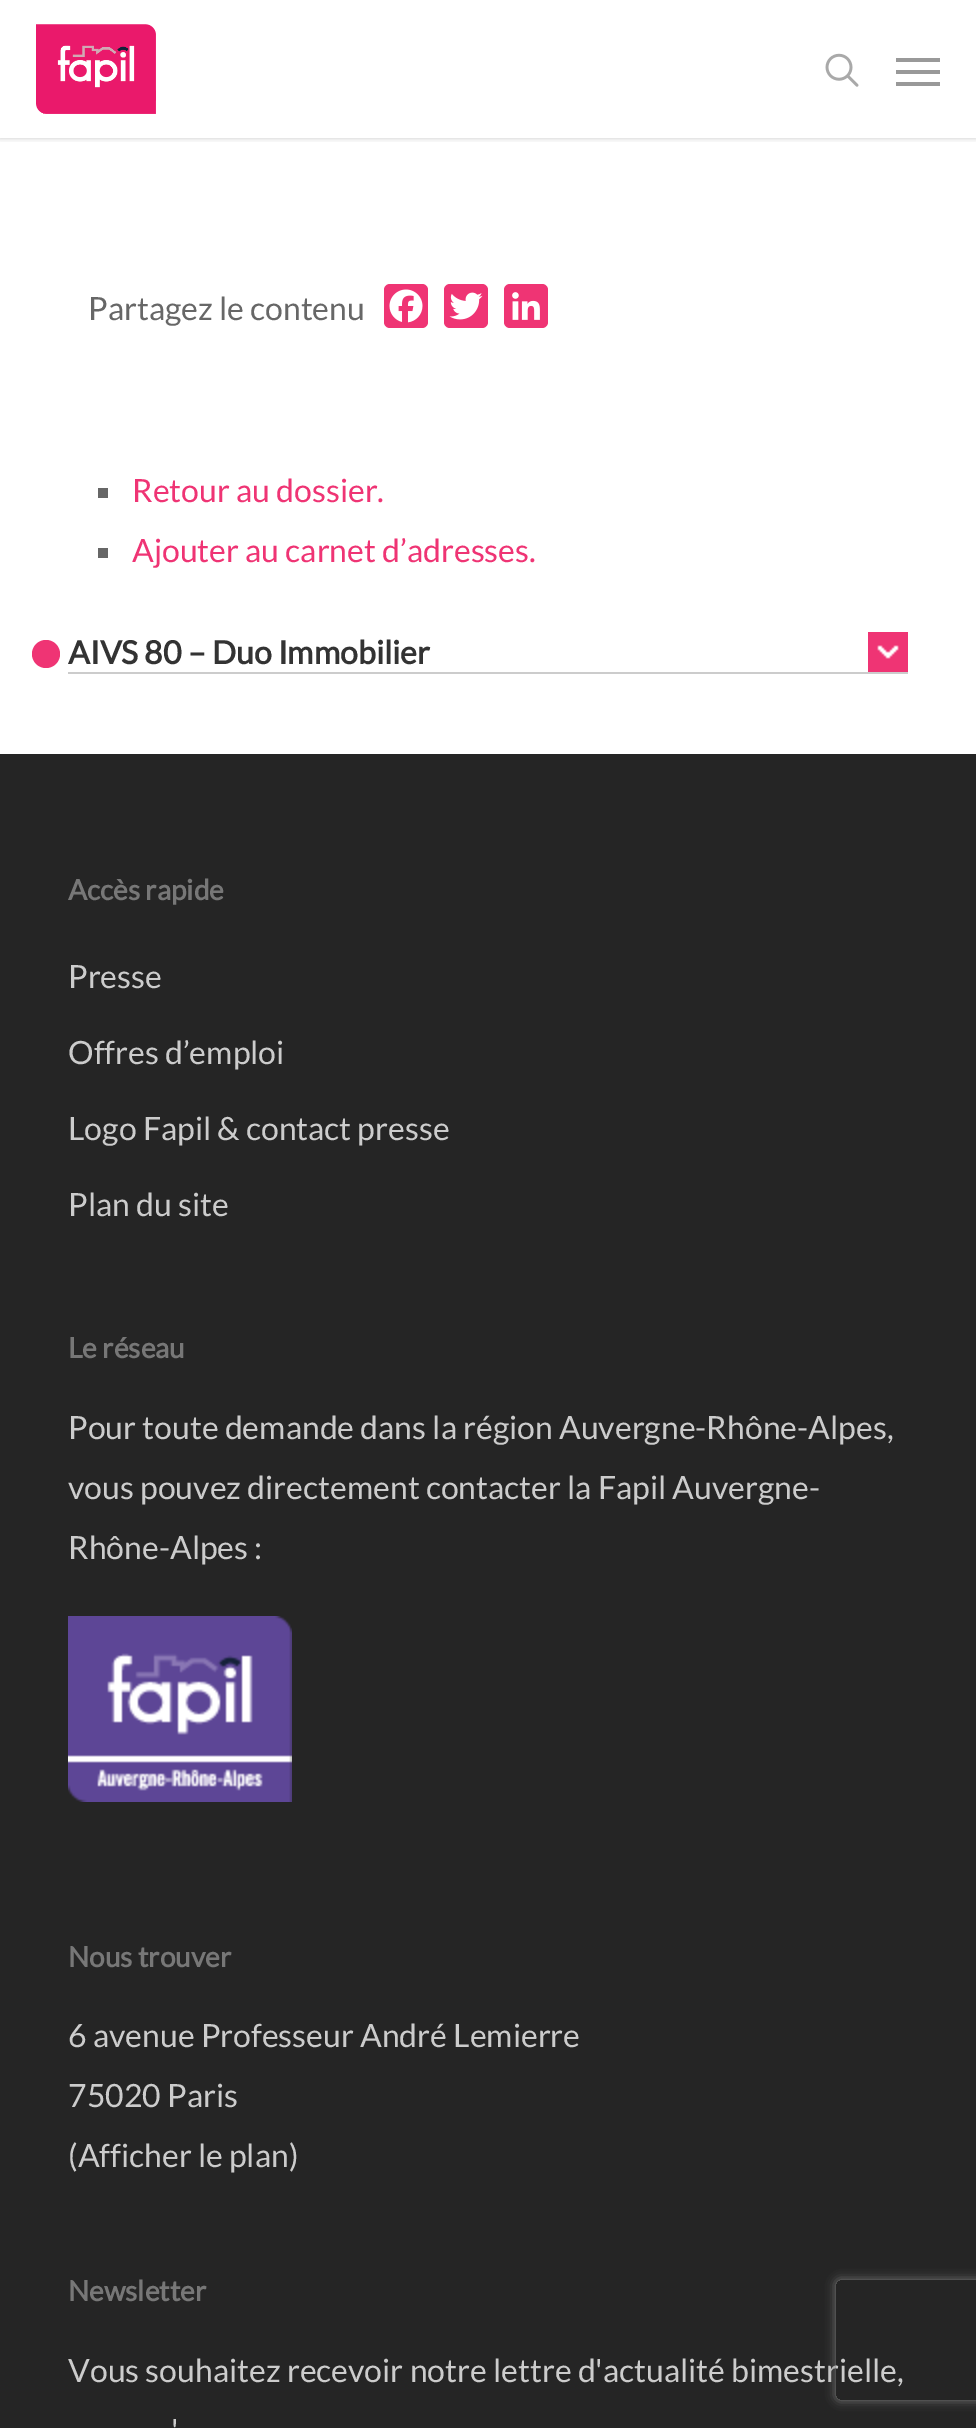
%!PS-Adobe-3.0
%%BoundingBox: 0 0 976 2428
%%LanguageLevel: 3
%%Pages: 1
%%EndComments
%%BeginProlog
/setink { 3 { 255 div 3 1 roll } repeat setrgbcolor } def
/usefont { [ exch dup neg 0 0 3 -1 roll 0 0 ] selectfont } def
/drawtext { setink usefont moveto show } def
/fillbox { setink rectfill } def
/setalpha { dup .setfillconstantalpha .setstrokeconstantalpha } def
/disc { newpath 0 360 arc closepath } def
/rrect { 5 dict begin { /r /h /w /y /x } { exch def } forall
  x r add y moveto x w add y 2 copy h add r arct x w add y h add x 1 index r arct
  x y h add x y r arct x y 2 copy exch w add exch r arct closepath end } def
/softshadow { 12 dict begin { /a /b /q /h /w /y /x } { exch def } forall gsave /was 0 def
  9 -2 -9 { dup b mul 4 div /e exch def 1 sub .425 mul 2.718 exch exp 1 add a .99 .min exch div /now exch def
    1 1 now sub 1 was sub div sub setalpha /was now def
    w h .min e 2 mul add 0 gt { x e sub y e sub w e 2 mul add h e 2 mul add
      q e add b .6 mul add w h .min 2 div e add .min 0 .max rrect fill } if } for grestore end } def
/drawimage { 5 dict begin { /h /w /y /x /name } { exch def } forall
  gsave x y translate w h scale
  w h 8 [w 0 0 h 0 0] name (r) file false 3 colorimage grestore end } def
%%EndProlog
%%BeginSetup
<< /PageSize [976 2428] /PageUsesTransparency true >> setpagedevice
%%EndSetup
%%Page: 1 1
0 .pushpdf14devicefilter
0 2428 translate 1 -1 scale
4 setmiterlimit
0 0 976 2428 255 255 255 fillbox
gsave
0 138 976 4 rectclip
0 0 0 setink
0 0 976 138 0 3 0.22 softshadow
grestore
(assets/img1.rgb) 36 24 120 90 drawimage
(assets/img2.rgb) 825 53 34 34 drawimage
896 58 44 4 153 153 153 fillbox
896 82 44 4 153 153 153 fillbox
896 70 44 4 153 153 153 fillbox
(Partagez le contenu) 88 320 /Lato-Regular 32 103 103 103 drawtext
239 52 116 setink
384 284 44 44 6 rrect fill
(assets/img3.rgb) 389 289 34 34 drawimage
444 284 44 44 6 rrect fill
(assets/img4.rgb) 449 292 34 28 drawimage
504 284 44 44 6 rrect fill
(assets/img5.rgb) 512 292 28 28 drawimage
98 488 10 10 103 103 103 fillbox
(Retour au dossier.) 132 502 /Lato-Regular 32 239 52 116 drawtext
98 548 10 10 103 103 103 fillbox
(Ajouter au carnet d’adresses.) 132 562 /Lato-Regular 32 239 52 116 drawtext
46 654 14 disc fill
68 672 840 2 204 204 204 fillbox
(AIVS 80 – Duo Immobilier) 68 664 /Lato-Bold 32 51 51 51 drawtext
868 632 40 40 239 52 116 fillbox
(assets/img6.rgb) 877 645 22 14 drawimage
0 754 976 1674 37 37 37 fillbox
(Accès rapide) 68 900 /Lato-Bold 28 119 119 119 drawtext
(Presse) 68 988 /Lato-Regular 32 204 204 204 drawtext
(Offres d’emploi) 68 1064 /Lato-Regular 32 204 204 204 drawtext
(Logo Fapil & contact presse) 68 1140 /Lato-Regular 32 204 204 204 drawtext
(Plan du site) 68 1216 /Lato-Regular 32 204 204 204 drawtext
(Le réseau) 68 1358 /Lato-Bold 28 119 119 119 drawtext
(Pour toute demande dans la région Auvergne-Rhône-Alpes,) 68 1439 /Lato-Regular 32 204 204 204 drawtext
(vous pouvez directement contacter la Fapil Auvergne-) 68 1499 /Lato-Regular 32 204 204 204 drawtext
(Rhône-Alpes :) 68 1559 /Lato-Regular 32 204 204 204 drawtext
(assets/img7.rgb) 68 1616 224 186 drawimage
(Nous trouver) 68 1967 /Lato-Bold 28 119 119 119 drawtext
(6 avenue Professeur André Lemierre) 68 2047 /Lato-Regular 32 204 204 204 drawtext
(75020 Paris) 68 2107 /Lato-Regular 32 204 204 204 drawtext
(\(Afficher le plan\)) 68 2167 /Lato-Regular 32 204 204 204 drawtext
(Newsletter) 68 2301 /Lato-Bold 28 119 119 119 drawtext
(Vous souhaitez recevoir notre lettre d'actualité bimestrielle,) 68 2382 /Lato-Regular 32 204 204 204 drawtext
(') 171 2442 /Lato-Regular 32 204 204 204 drawtext
gsave
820 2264 moveto 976 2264 lineto 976 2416 lineto 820 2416 lineto closepath 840 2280 moveto 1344 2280 lineto 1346 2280 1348 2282 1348 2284 curveto 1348 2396 lineto 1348 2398 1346 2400 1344 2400 curveto 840 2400 lineto 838 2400 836 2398 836 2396 curveto 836 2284 lineto 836 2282 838 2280 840 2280 curveto closepath eoclip newpath
128 128 128 setink
836 2280 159 120 4 5 1 softshadow
grestore
.poppdf14devicefilter showpage
%%EOF
